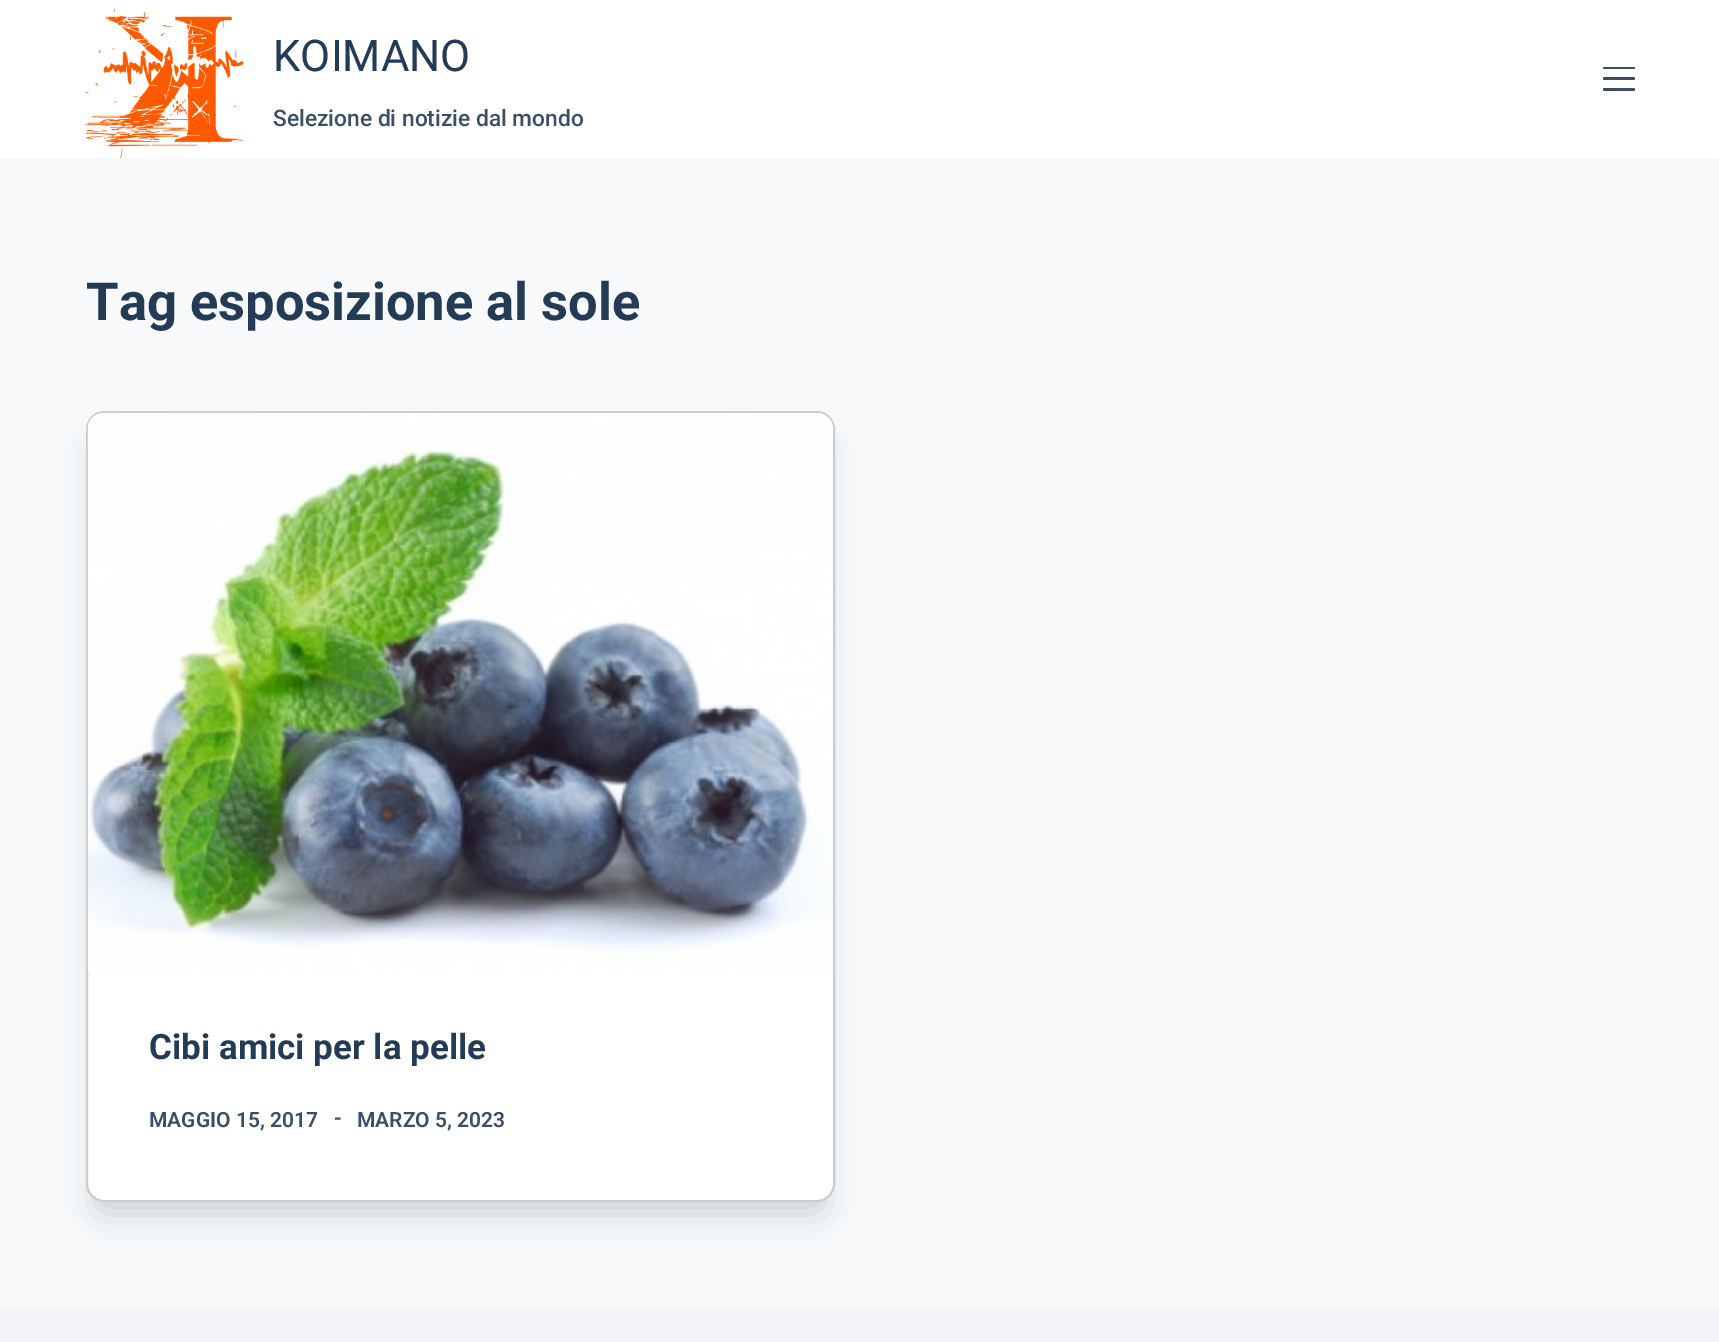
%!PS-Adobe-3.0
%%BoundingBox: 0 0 1719 1342
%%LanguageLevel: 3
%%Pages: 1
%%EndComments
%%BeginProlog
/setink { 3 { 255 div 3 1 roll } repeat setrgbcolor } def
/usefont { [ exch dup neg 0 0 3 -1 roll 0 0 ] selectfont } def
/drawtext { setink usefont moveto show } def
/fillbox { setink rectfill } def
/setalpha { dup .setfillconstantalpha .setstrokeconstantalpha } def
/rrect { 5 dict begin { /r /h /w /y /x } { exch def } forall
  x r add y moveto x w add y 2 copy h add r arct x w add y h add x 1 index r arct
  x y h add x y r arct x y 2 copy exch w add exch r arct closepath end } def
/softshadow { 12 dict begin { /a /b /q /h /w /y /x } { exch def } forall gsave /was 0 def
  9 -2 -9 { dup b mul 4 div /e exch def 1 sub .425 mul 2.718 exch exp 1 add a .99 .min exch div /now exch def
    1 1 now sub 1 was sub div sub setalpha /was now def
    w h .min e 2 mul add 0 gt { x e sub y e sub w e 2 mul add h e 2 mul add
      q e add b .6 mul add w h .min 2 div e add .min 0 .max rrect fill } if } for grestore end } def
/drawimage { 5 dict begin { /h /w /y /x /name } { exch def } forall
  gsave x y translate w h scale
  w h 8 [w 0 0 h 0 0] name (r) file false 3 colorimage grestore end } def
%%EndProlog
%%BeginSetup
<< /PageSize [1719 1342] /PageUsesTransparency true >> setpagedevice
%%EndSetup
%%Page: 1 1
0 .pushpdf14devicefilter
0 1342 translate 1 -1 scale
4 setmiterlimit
0 0 1719 1342 248 249 251 fillbox
0 0 1719 158 255 255 255 fillbox
(assets/img1.rgb) 85 8 159 150 drawimage
(KOIMANO) 273 71 /Roboto-Regular 43.75 36 59 86 drawtext
(Selezione di notizie dal mondo) 273 126 /Roboto-Medium 22.75 58 79 103 drawtext
1603 67 32 2 1 rrect fill
1603 77 32 3 1.5 rrect fill
1603 88 32 3 1.5 rrect fill
(Tag esposizione al sole) 86 320 /Roboto-Bold 52.5 36 59 86 drawtext
36 60 86 setink
96 443 728 770 7 16 0.23 softshadow
255 255 255 setink
87 412 747 789 17 rrect gsave fill grestore
205 205 205 setink
2 setlinewidth
stroke
(assets/img2.rgb) 87 413 746 558 drawimage
(Cibi amici per la pelle) 149 1059 /Roboto-Bold 35 36 59 86 drawtext
(MAGGIO 15, 2017) 149 1127 /Roboto-SemiBold 21 58 79 103 drawtext
(-) 334 1125 /Roboto-SemiBold 21 58 79 103 drawtext
(MARZO 5, 2023) 357 1127 /Roboto-SemiBold 21 58 79 103 drawtext
0 1307 1719 35 244 245 248 fillbox
.poppdf14devicefilter showpage
%%EOF
